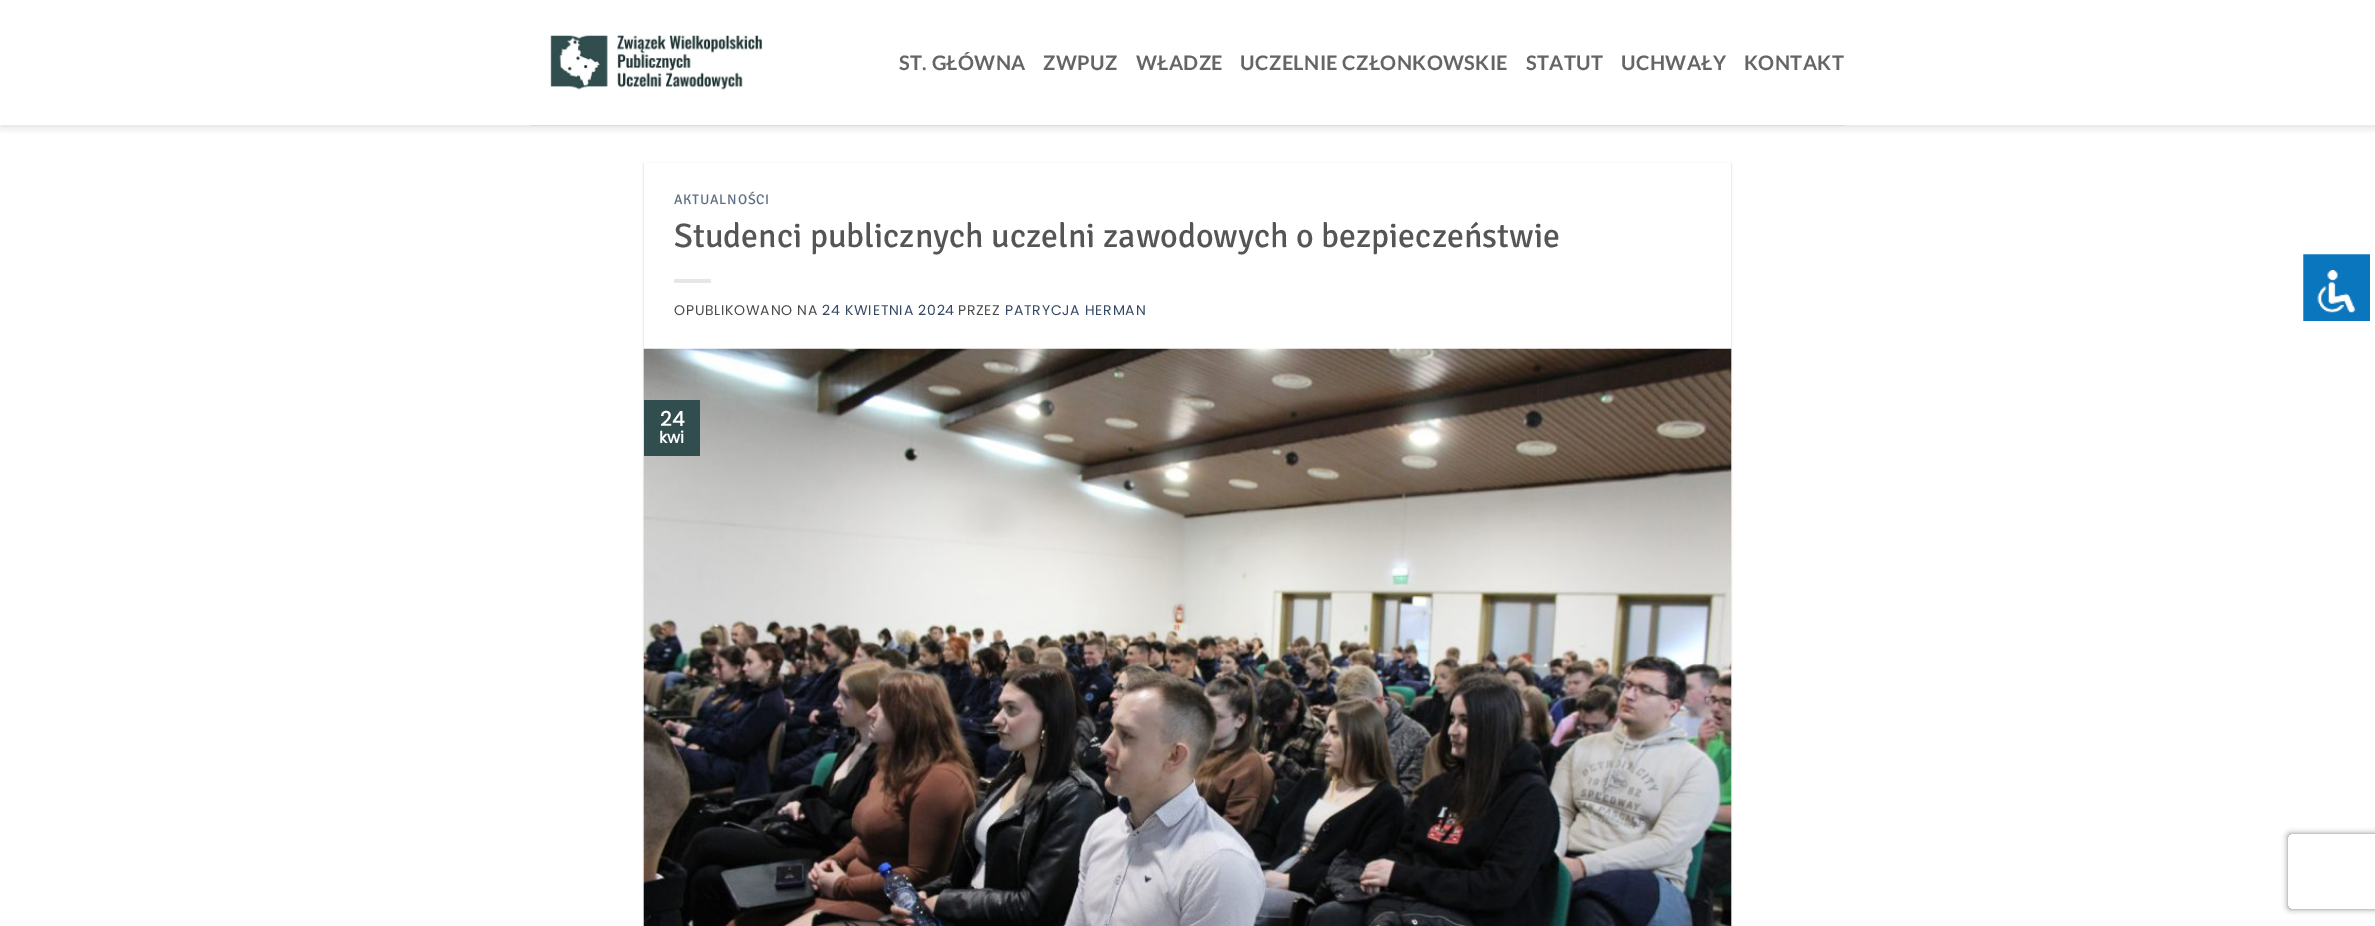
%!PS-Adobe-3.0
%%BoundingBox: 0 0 2375 926
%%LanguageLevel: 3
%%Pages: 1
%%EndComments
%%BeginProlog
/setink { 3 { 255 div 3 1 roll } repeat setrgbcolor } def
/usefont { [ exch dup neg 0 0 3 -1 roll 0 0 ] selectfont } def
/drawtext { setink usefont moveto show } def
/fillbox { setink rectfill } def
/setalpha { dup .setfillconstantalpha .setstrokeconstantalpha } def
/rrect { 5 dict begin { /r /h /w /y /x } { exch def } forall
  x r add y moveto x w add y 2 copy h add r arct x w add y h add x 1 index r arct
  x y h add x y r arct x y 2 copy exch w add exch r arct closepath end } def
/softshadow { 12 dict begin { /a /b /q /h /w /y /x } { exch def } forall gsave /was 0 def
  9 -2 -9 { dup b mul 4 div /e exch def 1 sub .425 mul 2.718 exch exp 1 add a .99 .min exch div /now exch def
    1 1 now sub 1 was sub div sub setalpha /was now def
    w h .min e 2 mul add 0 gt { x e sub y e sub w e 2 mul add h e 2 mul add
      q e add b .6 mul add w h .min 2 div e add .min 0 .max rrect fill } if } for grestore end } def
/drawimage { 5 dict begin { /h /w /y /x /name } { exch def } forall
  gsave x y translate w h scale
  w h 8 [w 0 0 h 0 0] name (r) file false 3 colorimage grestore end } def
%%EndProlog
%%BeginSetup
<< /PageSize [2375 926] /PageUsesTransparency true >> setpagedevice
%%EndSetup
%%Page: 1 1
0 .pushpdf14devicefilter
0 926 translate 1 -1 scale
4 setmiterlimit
0 0 2375 926 255 255 255 fillbox
gsave
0 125 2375 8 rectclip
0 0 0 setink
1 1 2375 125 0 6 0.15 softshadow
grestore
(assets/img1.rgb) 550 35 213 55 drawimage
/Lato-Bold 20 usefont
101 101 101 setink
899 70 moveto 0.4 0 (ST. GŁÓWNA) ashow
1043 70 moveto 0.4 0 (ZWPUZ) ashow
1136 70 moveto 0.4 0 (WŁADZE) ashow
1240 70 moveto 0.4 0 (UCZELNIE CZŁONKOWSKIE) ashow
1526 70 moveto 0.4 0 (STATUT) ashow
1621 70 moveto 0.4 0 (UCHWAŁY) ashow
1744 70 moveto 0.4 0 (KONTAKT) ashow
531 125 1313 1 219 219 219 fillbox
gsave
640 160 moveto 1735 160 lineto 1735 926 lineto 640 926 lineto closepath 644 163 moveto 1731 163 lineto 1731 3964 lineto 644 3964 lineto closepath eoclip newpath
0 0 0 setink
644 164 1087 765 0 1 0.24 softshadow
grestore
/Signika-Light 14 usefont
92 109 129 setink
674 204 moveto 0.75 0 (AKTUALNOŚCI) ashow
(Studenci publicznych uczelni zawodowych o bezpieczeństwie) 674 247 /Signika-Light 34 85 85 85 drawtext
674 279 37 4 230 230 230 fillbox
/Poppins-Regular 14 usefont
74 74 74 setink
674 315 moveto 0.75 0 (OPUBLIKOWANO NA) ashow
51 72 98 setink
822 315 moveto 0.75 0 (24 KWIETNIA 2024) ashow
74 74 74 setink
958 315 moveto 0.75 0 (PRZEZ) ashow
51 72 98 setink
1005 315 moveto 0.75 0 (PATRYCJA HERMAN) ashow
(assets/img2.rgb) 643 348 1089 578 drawimage
644 400 56 56 49 77 78 fillbox
(24) 660 426 /Poppins-Bold 20 255 255 255 drawtext
(kwi) 659 443 /Poppins-Bold 16 255 255 255 drawtext
10 118 190 setink
2301 252 71 71 0.5 rrect gsave fill grestore
255 255 255 setink
4 setlinewidth
stroke
(assets/img3.rgb) 2317 270 39 43 drawimage
gsave
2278 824 moveto 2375 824 lineto 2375 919 lineto 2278 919 lineto closepath 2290.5 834 moveto 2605.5 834 lineto 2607 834 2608 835 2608 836.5 curveto 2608 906.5 lineto 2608 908 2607 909 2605.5 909 curveto 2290.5 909 lineto 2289 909 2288 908 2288 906.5 curveto 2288 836.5 lineto 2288 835 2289 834 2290.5 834 curveto closepath eoclip newpath
128 128 128 setink
2288 834 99 75 2.5 3 1 softshadow
grestore
.poppdf14devicefilter showpage
%%EOF
